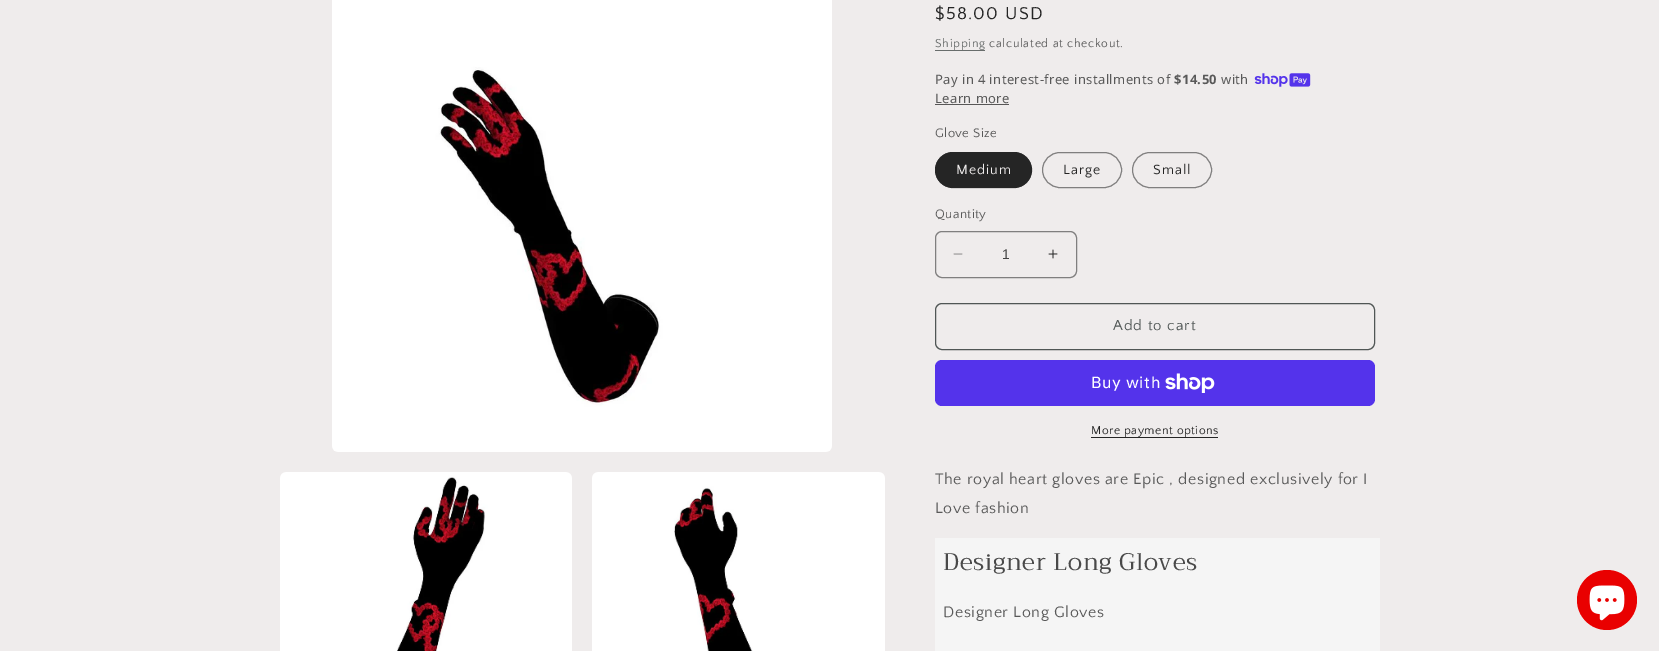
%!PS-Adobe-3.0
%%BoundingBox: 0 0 1659 651
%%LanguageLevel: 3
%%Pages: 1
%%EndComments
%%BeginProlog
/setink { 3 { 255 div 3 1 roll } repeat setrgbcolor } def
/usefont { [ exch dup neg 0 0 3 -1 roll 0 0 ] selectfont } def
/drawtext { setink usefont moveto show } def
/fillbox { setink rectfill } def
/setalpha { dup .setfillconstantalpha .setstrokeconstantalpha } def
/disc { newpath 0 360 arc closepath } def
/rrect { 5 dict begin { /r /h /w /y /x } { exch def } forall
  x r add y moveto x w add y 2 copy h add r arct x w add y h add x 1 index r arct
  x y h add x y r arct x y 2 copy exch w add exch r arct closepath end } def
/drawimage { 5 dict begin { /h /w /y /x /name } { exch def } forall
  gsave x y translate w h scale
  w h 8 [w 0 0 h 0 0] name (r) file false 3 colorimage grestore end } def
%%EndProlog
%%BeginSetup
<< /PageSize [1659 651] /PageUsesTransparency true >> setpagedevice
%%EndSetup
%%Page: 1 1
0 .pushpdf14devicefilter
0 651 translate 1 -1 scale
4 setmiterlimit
0 0 1659 651 239 236 236 fillbox
(assets/img1.rgb) 332 0 500 452 drawimage
(assets/img2.rgb) 280 472 292 179 drawimage
(assets/img3.rgb) 592 472 293 179 drawimage
/QuattrocentoSans-Regular 18 usefont
37 37 37 setink
935 19 moveto 1.25 0 ($58.00 USD) ashow
935 50 50 1 104 109 108 fillbox
/QuattrocentoSans-Regular 12 usefont
104 108 107 setink
935 47 moveto 0.7 0 (Shipping) ashow
89 89 89 setink
989 47 moveto 0.7 0 (calculated at checkout.) ashow
/NotoSans-Regular 13 usefont
935 84 moveto 0.4 0 (Pay in 4 interest-free installments of) ashow
/NotoSans-Bold 13 usefont
1174 84 moveto 0.4 0 ($14.50) ashow
/NotoSans-Regular 13 usefont
1221 84 moveto 0.4 0 (with) ashow
(assets/img4.rgb) 1254 73 57 14 drawimage
935 103 moveto 0.4 0 (Learn more) ashow
935 104 74 1 88 87 87 fillbox
/QuattrocentoSans-Regular 13 usefont
89 89 89 setink
935 137 moveto 0.4 0 (Glove Size) ashow
37 37 37 setink
935 152 97 36 18 rrect fill
0.55 setalpha
935.5 152.5 96 35 17.5 rrect stroke
/QuattrocentoSans-Regular 14 usefont
1 setalpha
239 236 236 setink
956 174 moveto 1 0 (Medium) ashow
128 127 127 setink
1042.5 152.5 79 35 17.5 rrect stroke
37 37 37 setink
1063 174 moveto 1 0 (Large) ashow
128 127 127 setink
1132.5 152.5 79 35 17.5 rrect stroke
37 37 37 setink
1153 174 moveto 1 0 (Small) ashow
/QuattrocentoSans-Regular 13 usefont
89 89 89 setink
935 218 moveto 0.4 0 (Quantity) ashow
(assets/img5.rgb) 953 253 10 2 drawimage
(assets/img6.rgb) 1048 249 10 10 drawimage
128 127 127 setink
935.5 231.5 141 46 6.5 rrect stroke
(1) 1002 259 /LiberationSans-Regular 14 67 67 67 drawtext
80 86 85 setink
935.5 303.5 439 46 6.5 rrect stroke
/QuattrocentoSans-Regular 15 usefont
1113 330 moveto 1 0 (Add to cart) ashow
84 51 235 setink
935 360 440 46 7 rrect fill
/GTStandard-Regular 16 usefont
255 255 255 setink
1091 388 moveto 0.6 0 (Buy with) ashow
(assets/img7.rgb) 1165 373 50 20 drawimage
1091 437 127 1 37 37 37 fillbox
/QuattrocentoSans-Regular 12 usefont
1091 434 moveto 0.5 0 (More payment options) ashow
/QuattrocentoSans-Regular 16 usefont
89 89 89 setink
935 484 moveto 0.6 0 (The royal heart gloves are Epic , designed exclusively for I) ashow
935 513 moveto 0.6 0 (Love fashion) ashow
935 538 445 113 245 245 245 fillbox
/Trirong-Regular 24 usefont
73 73 73 setink
943 570 moveto 0.6 0 (Designer Long Gloves) ashow
/QuattrocentoSans-Regular 16 usefont
89 89 89 setink
943 617 moveto 0.6 0 (Designer Long Gloves) ashow
233 0 0 setink
1607 600 30 disc fill
(assets/img8.rgb) 1589 585 36 36 drawimage
.poppdf14devicefilter showpage
%%EOF
